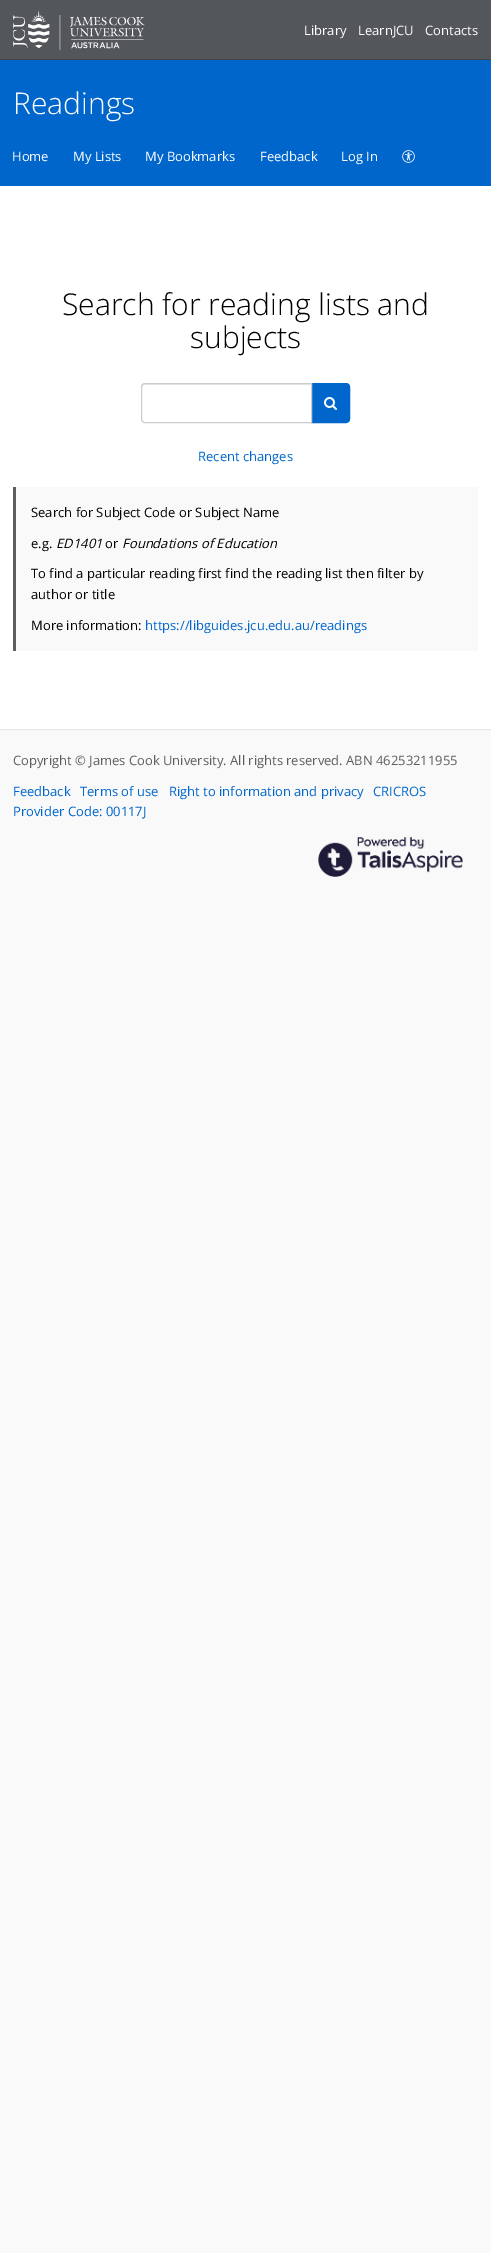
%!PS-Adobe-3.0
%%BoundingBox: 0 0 491 2253
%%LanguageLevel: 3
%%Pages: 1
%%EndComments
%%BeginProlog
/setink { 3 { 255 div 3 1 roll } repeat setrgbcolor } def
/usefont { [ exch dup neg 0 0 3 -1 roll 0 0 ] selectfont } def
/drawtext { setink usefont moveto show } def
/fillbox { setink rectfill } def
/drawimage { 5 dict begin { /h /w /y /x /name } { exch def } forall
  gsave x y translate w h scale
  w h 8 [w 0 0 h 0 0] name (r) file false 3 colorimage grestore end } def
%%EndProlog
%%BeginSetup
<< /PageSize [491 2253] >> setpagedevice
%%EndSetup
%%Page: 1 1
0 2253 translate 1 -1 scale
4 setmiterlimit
0 0 491 2253 255 255 255 fillbox
0 0 491 59 83 86 90 fillbox
0 59 491 1 66 69 72 fillbox
(assets/img1.rgb) 13 10 132 40 drawimage
(Library) 304 35 /OpenSans-Regular 13 255 255 255 drawtext
(LearnJCU) 358 35 /OpenSans-Regular 13 255 255 255 drawtext
(Contacts) 425 35 /OpenSans-Regular 13 255 255 255 drawtext
0 60 491 126 0 102 204 fillbox
(Readings) 13 114 /OpenSans-Light 30 255 255 255 drawtext
(Home) 12 161 /OpenSans-Regular 13 255 255 255 drawtext
(My Lists) 73 161 /OpenSans-Regular 13 255 255 255 drawtext
(My Bookmarks) 145 161 /OpenSans-Regular 13 255 255 255 drawtext
(Feedback) 260 161 /OpenSans-Regular 13 255 255 255 drawtext
(Log In) 341 161 /OpenSans-Regular 13 255 255 255 drawtext
(assets/img2.rgb) 402 150 13 13 drawimage
(Search for reading lists and) 62 315 /OpenSans-Light 30 0 0 0 drawtext
(subjects) 190 348 /OpenSans-Light 30 0 0 0 drawtext
0 102 204 setink
311.5 383.5 moveto 346 383.5 lineto 348 383.5 349.5 385 349.5 387 curveto 349.5 419 lineto 349.5 421 348 422.5 346 422.5 curveto 311.5 422.5 lineto closepath gsave fill grestore
stroke
255 255 255 setink
145 383 moveto 312 383 lineto 312 423 lineto 145 423 lineto 143 423 141 421 141 419 curveto 141 387 lineto 141 385 143 383 145 383 curveto closepath fill
236 236 236 setink
145 385 moveto 311 385 lineto 311 384 lineto 145 384 lineto 143 384 142 386 142 388 curveto 142 386 143 385 145 385 curveto closepath fill
204 204 204 setink
145 383.5 moveto 311.5 383.5 lineto 311.5 422.5 lineto 145 422.5 lineto 143 422.5 141.5 421 141.5 419 curveto 141.5 387 lineto 141.5 385 143 383.5 145 383.5 curveto closepath stroke
(assets/img3.rgb) 324 397 13 13 drawimage
(Recent changes) 198 461 /OpenSans-Regular 13 0 102 204 drawtext
16 487 462 164 249 249 249 fillbox
13 487 3 164 94 94 94 fillbox
(Search for Subject Code or Subject Name) 31 517 /OpenSans-Regular 13 0 0 0 drawtext
(e.g.) 31 548 /OpenSans-Regular 13 0 0 0 drawtext
(ED1401) 56 548 /OpenSans-Italic 13 0 0 0 drawtext
(or) 105 548 /OpenSans-Regular 13 0 0 0 drawtext
(Foundations of Education) 122 548 /OpenSans-Italic 13 0 0 0 drawtext
(To find a particular reading first find the reading list then filter by) 31 578 /OpenSans-Regular 13 0 0 0 drawtext
(author or title) 31 599 /OpenSans-Regular 13 0 0 0 drawtext
(More information:) 31 630 /OpenSans-Regular 13 0 0 0 drawtext
(https://libguides.jcu.edu.au/readings) 145 630 /OpenSans-Regular 13 0 102 204 drawtext
0 730 491 1523 249 249 249 fillbox
0 729 491 1 229 229 229 fillbox
(Copyright © James Cook University. All rights reserved. ABN 46253211955) 13 765 /OpenSans-Regular 13 94 94 94 drawtext
(Feedback) 13 796 /OpenSans-Regular 13 0 102 204 drawtext
(Terms of use) 80 796 /OpenSans-Regular 13 0 102 204 drawtext
(Right to information and privacy) 169 796 /OpenSans-Regular 13 0 102 204 drawtext
(CRICROS) 373 796 /OpenSans-Regular 13 0 102 204 drawtext
(Provider Code: 00117J) 13 816 /OpenSans-Regular 13 0 102 204 drawtext
(assets/img4.rgb) 318 837 145 40 drawimage
showpage
%%EOF
